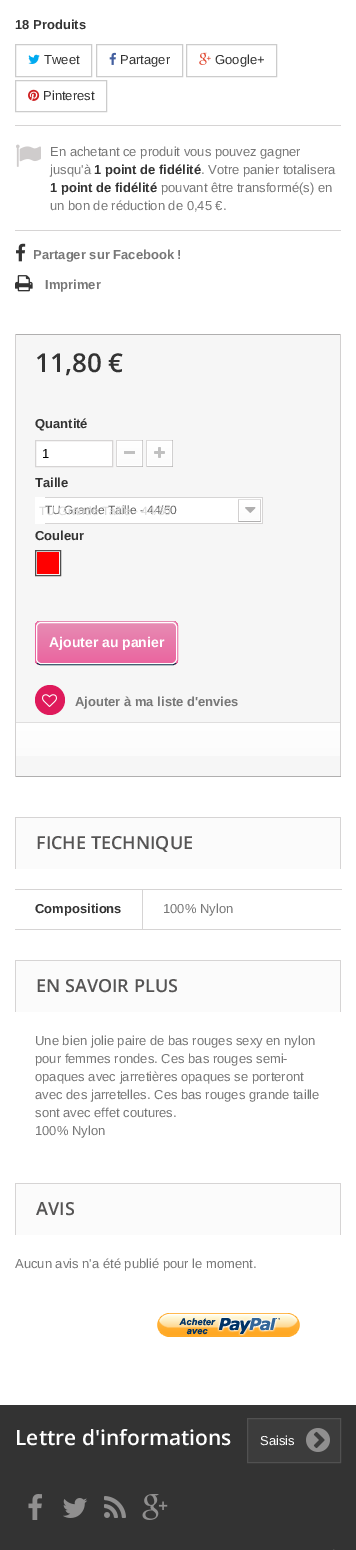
%!PS-Adobe-3.0
%%BoundingBox: 0 0 356 1550
%%LanguageLevel: 3
%%Pages: 1
%%EndComments
%%BeginProlog
/setink { 3 { 255 div 3 1 roll } repeat setrgbcolor } def
/usefont { [ exch dup neg 0 0 3 -1 roll 0 0 ] selectfont } def
/drawtext { setink usefont moveto show } def
/fillbox { setink rectfill } def
/disc { newpath 0 360 arc closepath } def
/rrect { 5 dict begin { /r /h /w /y /x } { exch def } forall
  x r add y moveto x w add y 2 copy h add r arct x w add y h add x 1 index r arct
  x y h add x y r arct x y 2 copy exch w add exch r arct closepath end } def
/drawimage { 5 dict begin { /h /w /y /x /name } { exch def } forall
  gsave x y translate w h scale
  w h 8 [w 0 0 h 0 0] name (r) file false 3 colorimage grestore end } def
%%EndProlog
%%BeginSetup
<< /PageSize [356 1550] >> setpagedevice
%%EndSetup
%%Page: 1 1
0 1550 translate 1 -1 scale
4 setmiterlimit
0 0 356 1550 255 255 255 fillbox
(18 Produits) 15 29 /LiberationSans-Bold 13 51 51 51 drawtext
204 204 204 setink
15.5 44.5 76 32 rectstroke
(assets/img1.rgb) 28 54 12 10 drawimage
(Tweet) 44 64 /LiberationSans-Regular 13 51 51 51 drawtext
204 204 204 setink
96.5 44.5 86 32 rectstroke
(assets/img2.rgb) 109 52 7 13 drawimage
(Partager) 120 64 /LiberationSans-Regular 13 51 51 51 drawtext
204 204 204 setink
186.5 44.5 90 32 rectstroke
(assets/img3.rgb) 199 52 12 13 drawimage
(Google+) 215 64 /LiberationSans-Regular 13 51 51 51 drawtext
204 204 204 setink
15.5 80.5 91 31 rectstroke
(assets/img4.rgb) 28 89 12 12 drawimage
(Pinterest) 43 100 /LiberationSans-Regular 13 51 51 51 drawtext
15 125 326 1 214 212 212 fillbox
15 230 326 1 214 212 212 fillbox
(assets/img5.rgb) 16 144 25 23 drawimage
(En achetant ce produit vous pouvez gagner) 50 156 /LiberationSans-Regular 13 119 119 119 drawtext
(jusqu'à) 50 174 /LiberationSans-Regular 13 119 119 119 drawtext
(1 point de fidélité) 94 174 /LiberationSans-Bold 13 51 51 51 drawtext
(. Votre panier totalisera) 201 174 /LiberationSans-Regular 13 119 119 119 drawtext
(1 point de fidélité) 50 192 /LiberationSans-Bold 13 51 51 51 drawtext
(pouvant être transformé\(s\) en) 161 192 /LiberationSans-Regular 13 119 119 119 drawtext
(un bon de réduction de 0,45 €.) 50 210 /LiberationSans-Regular 13 119 119 119 drawtext
(assets/img6.rgb) 16 243 10 19 drawimage
(Partager sur Facebook !) 33 259 /LiberationSans-Bold 13 119 119 119 drawtext
(assets/img7.rgb) 15 275 18 17 drawimage
(Imprimer) 45 289 /LiberationSans-Bold 13 119 119 119 drawtext
16 335 324 441 246 246 246 fillbox
15 334 326 1 176 175 175 fillbox
340 334 1 443 210 208 208 fillbox
15 776 326 1 176 175 175 fillbox
15 334 1 443 210 208 208 fillbox
(11,80 €) 35 372 /OpenSans-SemiBold 26 51 51 51 drawtext
(Quantité) 35 428 /LiberationSans-Bold 13 51 51 51 drawtext
255 255 255 setink
35.5 440.5 moveto 112.5 440.5 lineto 112.5 466.5 lineto 35.5 466.5 lineto closepath gsave fill grestore
214 212 212 setink
stroke
(1) 42 458 /LiberationSans-Regular 13 0 0 0 drawtext
116 440 27 1 222 220 220 fillbox
142 440 1 27 193 191 191 fillbox
116 466 27 1 181 180 180 fillbox
116 440 1 27 218 216 216 fillbox
gsave 118 442 moveto 141 442 lineto 141 465 lineto 118 465 lineto closepath clip newpath
<< /ShadingType 2 /ColorSpace /DeviceRGB /Coords [130 442 130 465] /Extend [true true] /Function << /FunctionType 2 /Domain [0 1] /C0 [1 1 1] /C1 [0.984 0.984 0.984] /N 1 >> >> shfill grestore
255 255 255 setink
117.5 441.5 24 24 rectstroke
124 451 11 3 192 192 192 fillbox
146 440 27 1 222 220 220 fillbox
172 440 1 27 193 191 191 fillbox
146 466 27 1 181 180 180 fillbox
146 440 1 27 218 216 216 fillbox
gsave 148 442 moveto 171 442 lineto 171 465 lineto 148 465 lineto closepath clip newpath
<< /ShadingType 2 /ColorSpace /DeviceRGB /Coords [160 442 160 465] /Extend [true true] /Function << /FunctionType 2 /Domain [0 1] /C0 [1 1 1] /C1 [0.984 0.984 0.984] /N 1 >> >> shfill grestore
255 255 255 setink
147.5 441.5 24 24 rectstroke
(assets/img8.rgb) 154 447 11 11 drawimage
(Taille) 35 487 /LiberationSans-Bold 13 51 51 51 drawtext
35 497 10 27 255 255 255 fillbox
(assets/img9.rgb) 45 497 218 27 drawimage
(TU Grande Taille - 44/50) 45 514 /LiberationSans-Regular 12 102 102 102 drawtext
(TU Grande Taille - 44/50) 39 515 /LiberationSans-Regular 12 218 218 218 drawtext
(Couleur) 35 540 /LiberationSans-Bold 13 51 51 51 drawtext
77 77 77 setink
35.5 550.5 25 25 rectstroke
37 552 22 22 255 0 0 fillbox
gsave
35 621 143 44 5 rrect clip newpath
gsave 35 621 moveto 178 621 lineto 178 622 lineto 35 622 lineto closepath clip newpath
<< /ShadingType 2 /ColorSpace /DeviceRGB /Coords [107 580 107 622] /Extend [true true] /Function << /FunctionType 2 /Domain [0 1] /C0 [0.902 0.553 0.706] /C1 [0.922 0.392 0.624] /N 1 >> >> shfill grestore
gsave 35 622 moveto 178 622 lineto 178 664 lineto 35 664 lineto closepath clip newpath
<< /ShadingType 2 /ColorSpace /DeviceRGB /Coords [107 622 107 664] /Extend [true true] /Function << /FunctionType 2 /Domain [0 1] /C0 [0.902 0.553 0.706] /C1 [0.922 0.392 0.624] /N 1 >> >> shfill grestore
gsave 35 664 moveto 178 664 lineto 178 665 lineto 35 665 lineto closepath clip newpath
<< /ShadingType 2 /ColorSpace /DeviceRGB /Coords [107 664 107 706] /Extend [true true] /Function << /FunctionType 2 /Domain [0 1] /C0 [0.902 0.553 0.706] /C1 [0.922 0.392 0.624] /N 1 >> >> shfill grestore
grestore
230 141 180 setink
37 623 moveto 40 621.5 lineto 173.5 621.5 lineto 176 623 lineto stroke
235 100 159 setink
176 623 moveto 177 623.5 177.5 625 177.5 626 curveto 177.5 660 lineto 177.5 661 177 662.5 176 663 curveto stroke
1 39 64 setink
176 663 moveto 173.5 664.5 lineto 62 664.5 lineto 40 664.5 lineto 37 663 lineto stroke
235 100 159 setink
37 663 moveto 36 662.5 35.5 661 35.5 660 curveto 35.5 626 lineto 35.5 625 36 623.5 37 623 curveto stroke
255 255 255 setink
36.5 622.5 140 41 4.5 rrect stroke
(Ajouter au panier) 49 647 /LiberationSans-Bold 14 255 255 255 drawtext
223 26 91 setink
50 700 15 disc fill
(assets/img10.rgb) 42 694 15 13 drawimage
(Ajouter à ma liste d'envies) 75 706 /LiberationSans-Bold 13 119 119 119 drawtext
gsave 16 723 moveto 340 723 lineto 340 756 lineto 16 756 lineto closepath clip newpath
<< /ShadingType 2 /ColorSpace /DeviceRGB /Coords [178 723 178 756] /Extend [true true] /Function << /FunctionType 2 /Domain [0 1] /C0 [1 1 1] /C1 [0.984 0.984 0.984] /N 1 >> >> shfill grestore
16 722 324 1 223 222 222 fillbox
16 818 324 51 251 251 251 fillbox
15 817 326 1 214 212 212 fillbox
340 817 1 52 214 212 212 fillbox
15 817 1 52 214 212 212 fillbox
(FICHE TECHNIQUE) 36 849 /OpenSans-SemiBold 18 85 84 84 drawtext
15 929 326 1 214 212 212 fillbox
15 889 327 1 214 212 212 fillbox
142 889 1 41 214 212 212 fillbox
(Compositions) 35 913 /LiberationSans-Bold 13 51 51 51 drawtext
(100% Nylon) 163 913 /LiberationSans-Regular 13 119 119 119 drawtext
16 961 324 51 251 251 251 fillbox
15 960 326 1 214 212 212 fillbox
340 960 1 52 214 212 212 fillbox
15 960 1 52 214 212 212 fillbox
(EN SAVOIR PLUS) 36 992 /OpenSans-SemiBold 18 85 84 84 drawtext
(Une bien jolie paire de bas rouges sexy en nylon) 35 1045 /LiberationSans-Regular 13 119 119 119 drawtext
(pour femmes rondes. Ces bas rouges semi-) 35 1063 /LiberationSans-Regular 13 119 119 119 drawtext
(opaques avec jarretières opaques se porteront) 35 1081 /LiberationSans-Regular 13 119 119 119 drawtext
(avec des jarretelles. Ces bas rouges grande taille) 35 1099 /LiberationSans-Regular 13 119 119 119 drawtext
(sont avec effet coutures.) 35 1117 /LiberationSans-Regular 13 119 119 119 drawtext
(100% Nylon) 35 1135 /LiberationSans-Regular 13 119 119 119 drawtext
16 1184 324 51 251 251 251 fillbox
15 1183 326 1 214 212 212 fillbox
340 1183 1 52 214 212 212 fillbox
15 1183 1 52 214 212 212 fillbox
(AVIS) 36 1215 /OpenSans-SemiBold 18 85 84 84 drawtext
(Aucun avis n'a été publié pour le moment.) 15 1268 /LiberationSans-Regular 13 119 119 119 drawtext
(assets/img11.rgb) 157 1313 143 24 drawimage
0 1405 356 145 51 51 51 fillbox
(Lettre d'informations) 15 1445 /OpenSans-SemiBold 21 255 255 255 drawtext
60 60 60 setink
247.5 1418.5 moveto 340.5 1418.5 lineto 340.5 1462.5 lineto 247.5 1462.5 lineto closepath gsave fill grestore
81 81 81 setink
stroke
(Saisis) 260 1445 /LiberationSans-Regular 13 255 255 255 drawtext
(assets/img12.rgb) 306 1428 24 24 drawimage
(assets/img13.rgb) 28 1494 14 26 drawimage
(assets/img14.rgb) 63 1498 25 20 drawimage
(assets/img15.rgb) 104 1496 22 22 drawimage
(assets/img16.rgb) 142 1494 26 26 drawimage
(assets/img17.rgb) 333 1549 2 1 drawimage
showpage
%%EOF
